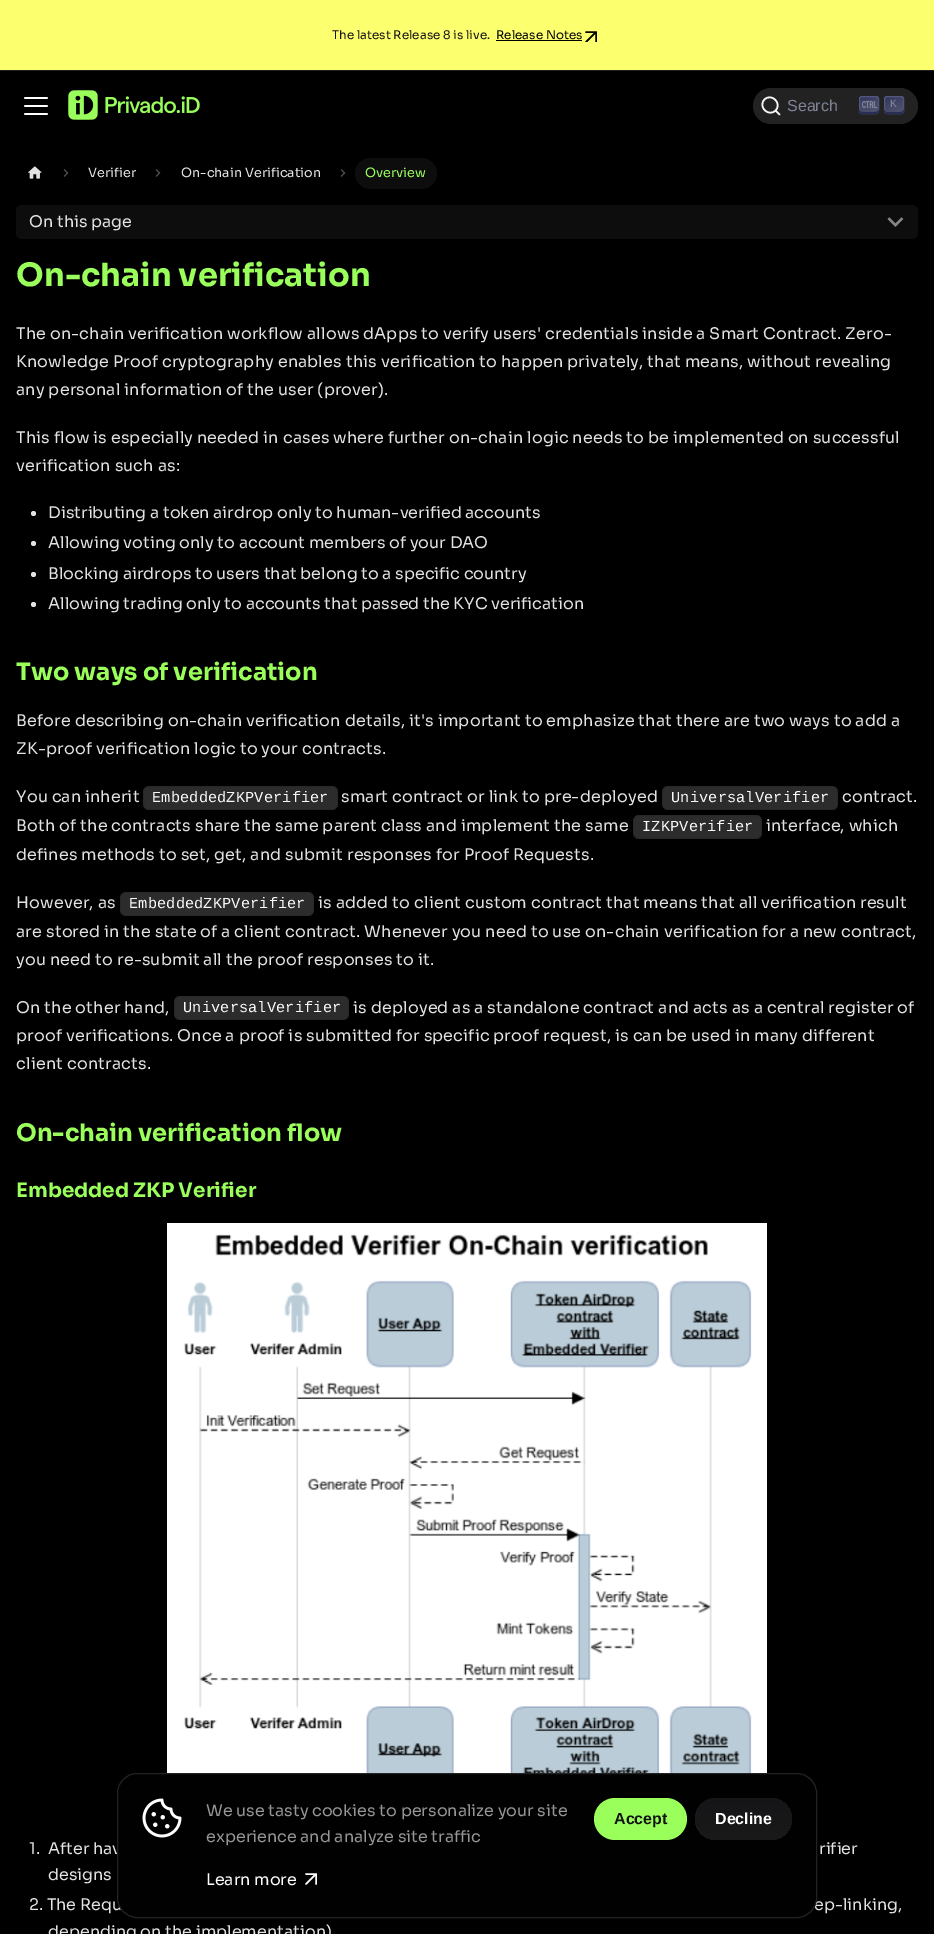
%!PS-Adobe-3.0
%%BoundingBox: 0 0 934 1934
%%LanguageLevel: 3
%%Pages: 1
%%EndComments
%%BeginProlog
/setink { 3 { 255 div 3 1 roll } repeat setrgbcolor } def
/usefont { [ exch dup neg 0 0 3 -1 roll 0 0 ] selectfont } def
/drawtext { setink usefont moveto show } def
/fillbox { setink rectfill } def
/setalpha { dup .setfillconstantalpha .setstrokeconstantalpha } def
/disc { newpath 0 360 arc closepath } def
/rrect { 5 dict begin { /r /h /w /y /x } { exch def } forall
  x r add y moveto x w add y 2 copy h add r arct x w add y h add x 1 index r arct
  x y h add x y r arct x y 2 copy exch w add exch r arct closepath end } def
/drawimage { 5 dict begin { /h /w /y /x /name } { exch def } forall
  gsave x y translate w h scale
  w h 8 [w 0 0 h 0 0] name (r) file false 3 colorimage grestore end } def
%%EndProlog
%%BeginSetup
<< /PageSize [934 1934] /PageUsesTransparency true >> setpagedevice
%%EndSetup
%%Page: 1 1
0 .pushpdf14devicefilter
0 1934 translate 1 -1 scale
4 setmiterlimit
0 0 934 1934 0 0 0 fillbox
0 0 934 70 252 255 110 fillbox
0 70 934 1 28 30 33 fillbox
(The latest Release 8 is live.) 332 39 /Sora-Regular 11.9 19 19 19 drawtext
(Release Notes) 496 39 /Sora-Regular 11.9 0 0 0 drawtext
gsave
579 27 23 15 rectclip
1.5 setlinewidth
1 setlinecap
1 setlinejoin
586 42 moveto 596 32 lineto 596 32 moveto 596 42 lineto 596 32 moveto 586 32 lineto stroke
grestore
496 40 86 1 0 0 0 fillbox
(assets/img1.rgb) 24 97 24 18 drawimage
(assets/img2.rgb) 68 90 132 30 drawimage
34 34 34 setink
753 88 165 36 18 rrect fill
245 246 247 setink
1.6 setlinewidth
1 setlinecap
1 setlinejoin
775.5 110.5 moveto 779.5 114.5 lineto 775.5 110.5 lineto 768.5 117.5 757.5 106.5 764.5 99.5 curveto 771.5 92.5 782.5 103.5 775.5 110.5 curveto closepath stroke
(Search) 787 111 /LiberationSans-Regular 16 127 132 151 drawtext
gsave 859.5 96.5 19 17 2.5 rrect clip newpath
<< /ShadingType 2 /ColorSpace /DeviceRGB /Coords [875 116 863 94] /Extend [true true] /Function << /FunctionType 2 /Domain [0 1] /C0 [0.337 0.345 0.447] /C1 [0.192 0.208 0.357] /N 1 >> >> shfill grestore
81 87 125 setink
1 setlinewidth
0 setlinecap
0 setlinejoin
859.5 96.5 19 17 2.5 rrect stroke
40 45 85 setink
879 108.5 moveto 879 111 877.5 112 874 112 curveto 862 112 lineto 860 112 859 110.5 859 108.5 curveto 859 111 lineto 859 112.5 860.5 114 862 114 curveto 876 114 lineto 877.5 114 879 112.5 879 111 curveto closepath fill
(assets/img3.rgb) 862 100 15 9 drawimage
gsave 884.5 96.5 19 17 2.5 rrect clip newpath
<< /ShadingType 2 /ColorSpace /DeviceRGB /Coords [900 116 888 94] /Extend [true true] /Function << /FunctionType 2 /Domain [0 1] /C0 [0.337 0.345 0.447] /C1 [0.192 0.208 0.357] /N 1 >> >> shfill grestore
81 87 125 setink
884.5 96.5 19 17 2.5 rrect stroke
40 45 85 setink
904 108.5 moveto 904 111 902.5 112 899 112 curveto 887 112 lineto 885 112 884 110.5 884 108.5 curveto 884 111 lineto 884 112.5 885.5 114 887 114 curveto 901 114 lineto 902.5 114 904 112.5 904 111 curveto closepath fill
(K) 890 107 /LiberationMono-Regular 11 127 132 151 drawtext
(assets/img4.rgb) 28 166 14 13 drawimage
(assets/img5.rgb) 63 169 6 8 drawimage
(Verifier) 88 177 /Sora-Regular 12.75 227 227 227 drawtext
(assets/img5.rgb) 155 169 6 8 drawimage
(On-chain Verification) 181 177 /Sora-Regular 12.75 227 227 227 drawtext
(assets/img5.rgb) 340 169 6 8 drawimage
13 13 13 setink
355 158 82 31 15.5 rrect fill
(Overview) 365 177 /Sora-Regular 12.75 154 254 91 drawtext
13 13 13 setink
16 205 902 34 6 rrect fill
(On this page) 29 227 /Sora-Regular 16 227 227 227 drawtext
(assets/img6.rgb) 887 217 17 10 drawimage
(On-chain verification) 16 286 /Sora-Bold 32 154 254 91 drawtext
/Sora-Regular 16 usefont
227 227 227 setink
16 339 moveto 0.16 0 (The on-chain verification workflow allows dApps to verify users' credentials inside a Smart Contract. Zero-) ashow
16 367 moveto 0.16 0 (Knowledge Proof cryptography enables this verification to happen privately, that means, without revealing) ashow
16 395 moveto 0.16 0 (any personal information of the user \(prover\).) ashow
16 443 moveto 0.16 0 (This flow is especially needed in cases where further on-chain logic needs to be implemented on successful) ashow
16 471 moveto 0.16 0 (verification such as:) ashow
33.5 513.5 2.5 disc fill
(Distributing a token airdrop only to human-verified accounts) 48 518 /Sora-Regular 16 227 227 227 drawtext
33.5 543.5 2.5 disc fill
(Allowing voting only to account members of your DAO) 48 548 /Sora-Regular 16 227 227 227 drawtext
33.5 574.5 2.5 disc fill
(Blocking airdrops to users that belong to a specific country) 48 579 /Sora-Regular 16 227 227 227 drawtext
33.5 604.5 2.5 disc fill
(Allowing trading only to accounts that passed the KYC verification) 48 609 /Sora-Regular 16 227 227 227 drawtext
(Two ways of verification) 16 680 /Sora-Bold 24 154 254 91 drawtext
/Sora-Regular 16 usefont
227 227 227 setink
16 726 moveto 0.16 0 (Before describing on-chain verification details, it's important to emphasize that there are two ways to add a) ashow
16 754 moveto 0.16 0 (ZK-proof verification logic to your contracts.) ashow
16 802 moveto 0.16 0 (You can inherit) ashow
44 44 44 setink
143 786 195 24 6 rrect fill
0.1 setalpha
0 0 0 setink
143.5 786.5 194 23 5.5 rrect stroke
/LiberationMono-Regular 15.25 usefont
1 setalpha
248 248 248 setink
152 802 moveto 0.16 0 (EmbeddedZKPVerifier) ashow
/Sora-Regular 16 usefont
227 227 227 setink
341 802 moveto 0.16 0 (smart contract or link to pre-deployed) ashow
44 44 44 setink
662 786 176 24 6 rrect fill
0.1 setalpha
0 0 0 setink
662.5 786.5 175 23 5.5 rrect stroke
/LiberationMono-Regular 15.25 usefont
1 setalpha
248 248 248 setink
671 802 moveto 0.16 0 (UniversalVerifier) ashow
/Sora-Regular 16 usefont
227 227 227 setink
842 802 moveto 0.16 0 (contract.) ashow
16 831 moveto 0.16 0 (Both of the contracts share the same parent class and implement the same) ashow
44 44 44 setink
633 815 129 24 6 rrect fill
0.1 setalpha
0 0 0 setink
633.5 815.5 128 23 5.5 rrect stroke
/LiberationMono-Regular 15.25 usefont
1 setalpha
248 248 248 setink
642 831 moveto 0.16 0 (IZKPVerifier) ashow
/Sora-Regular 16 usefont
227 227 227 setink
766 831 moveto 0.16 0 (interface, which) ashow
16 860 moveto 0.16 0 (defines methods to set, get, and submit responses for Proof Requests.) ashow
16 908 moveto 0.16 0 (However, as) ashow
44 44 44 setink
120 892 194 24 6 rrect fill
0.1 setalpha
0 0 0 setink
120.5 892.5 193 23 5.5 rrect stroke
/LiberationMono-Regular 15.25 usefont
1 setalpha
248 248 248 setink
129 908 moveto 0.16 0 (EmbeddedZKPVerifier) ashow
/Sora-Regular 16 usefont
227 227 227 setink
318 908 moveto 0.16 0 (is added to client custom contract that means that all verification result) ashow
16 937 moveto 0.16 0 (are stored in the state of a client contract. Whenever you need to use on-chain verification for a new contract,) ashow
16 965 moveto 0.16 0 (you need to re-submit all the proof responses to it.) ashow
16 1013 moveto 0.16 0 (On the other hand,) ashow
44 44 44 setink
174 996 175 24 6 rrect fill
0.1 setalpha
0 0 0 setink
174.5 996.5 174 23 5.5 rrect stroke
/LiberationMono-Regular 15.25 usefont
1 setalpha
248 248 248 setink
183 1012 moveto 0.16 0 (UniversalVerifier) ashow
/Sora-Regular 16 usefont
227 227 227 setink
353 1013 moveto 0.16 0 (is deployed as a standalone contract and acts as a central register of) ashow
16 1041 moveto 0.16 0 (proof verifications. Once a proof is submitted for specific proof request, is can be used in many different) ashow
16 1069 moveto 0.16 0 (client contracts.) ashow
(On-chain verification flow) 16 1141 /Sora-Bold 24 154 254 91 drawtext
(Embedded ZKP Verifier) 16 1197 /Sora-Bold 20 154 254 91 drawtext
(assets/img7.rgb) 167 1223 600 550 drawimage
(1.) 29 1854 /Sora-Regular 16 227 227 227 drawtext
(After hav) 48 1854 /Sora-Regular 16 227 227 227 drawtext
(rifier) 819 1854 /Sora-Regular 16 227 227 227 drawtext
(designs) 48 1880 /Sora-Regular 16 227 227 227 drawtext
(2. The Requ) 29 1910 /Sora-Regular 16 227 227 227 drawtext
(ep-linking,) 814 1910 /Sora-Regular 16 227 227 227 drawtext
(depending on the implementation\)) 48 1937 /Sora-Regular 16 227 227 227 drawtext
1 1 1 setink
117.5 1773.5 699 144 19.5 rrect gsave fill grestore
34 34 34 setink
stroke
(assets/img8.rgb) 142 1798 40 40 drawimage
(We use tasty cookies to personalize your site) 206 1816 /Sora-Regular 16 150 150 150 drawtext
(experience and analyze site traffic) 206 1842 /Sora-Regular 16 150 150 150 drawtext
(Learn more) 206 1885 /Sora-Regular 16 255 255 255 drawtext
1.5 setlinewidth
1 setlinecap
1 setlinejoin
306 1884 moveto 316 1874 lineto 316 1874 moveto 316 1884 lineto 316 1874 moveto 306 1874 lineto stroke
154 254 91 setink
594 1798 93 42 21 rrect fill
(Accept) 614 1824 /LiberationSans-Bold 16 19 19 19 drawtext
gsave 695 1798 97 42 21 rrect clip newpath
<< /ShadingType 2 /ColorSpace /DeviceRGB /Coords [744 1798 744 1840] /Extend [true true] /Function << /FunctionType 2 /Domain [0 1] /C0 [0.082 0.078 0.09] /C1 [0.106 0.102 0.102] /N 1 >> >> shfill grestore
(Decline) 715 1824 /LiberationSans-Bold 16 255 255 255 drawtext
.poppdf14devicefilter showpage
%%EOF
